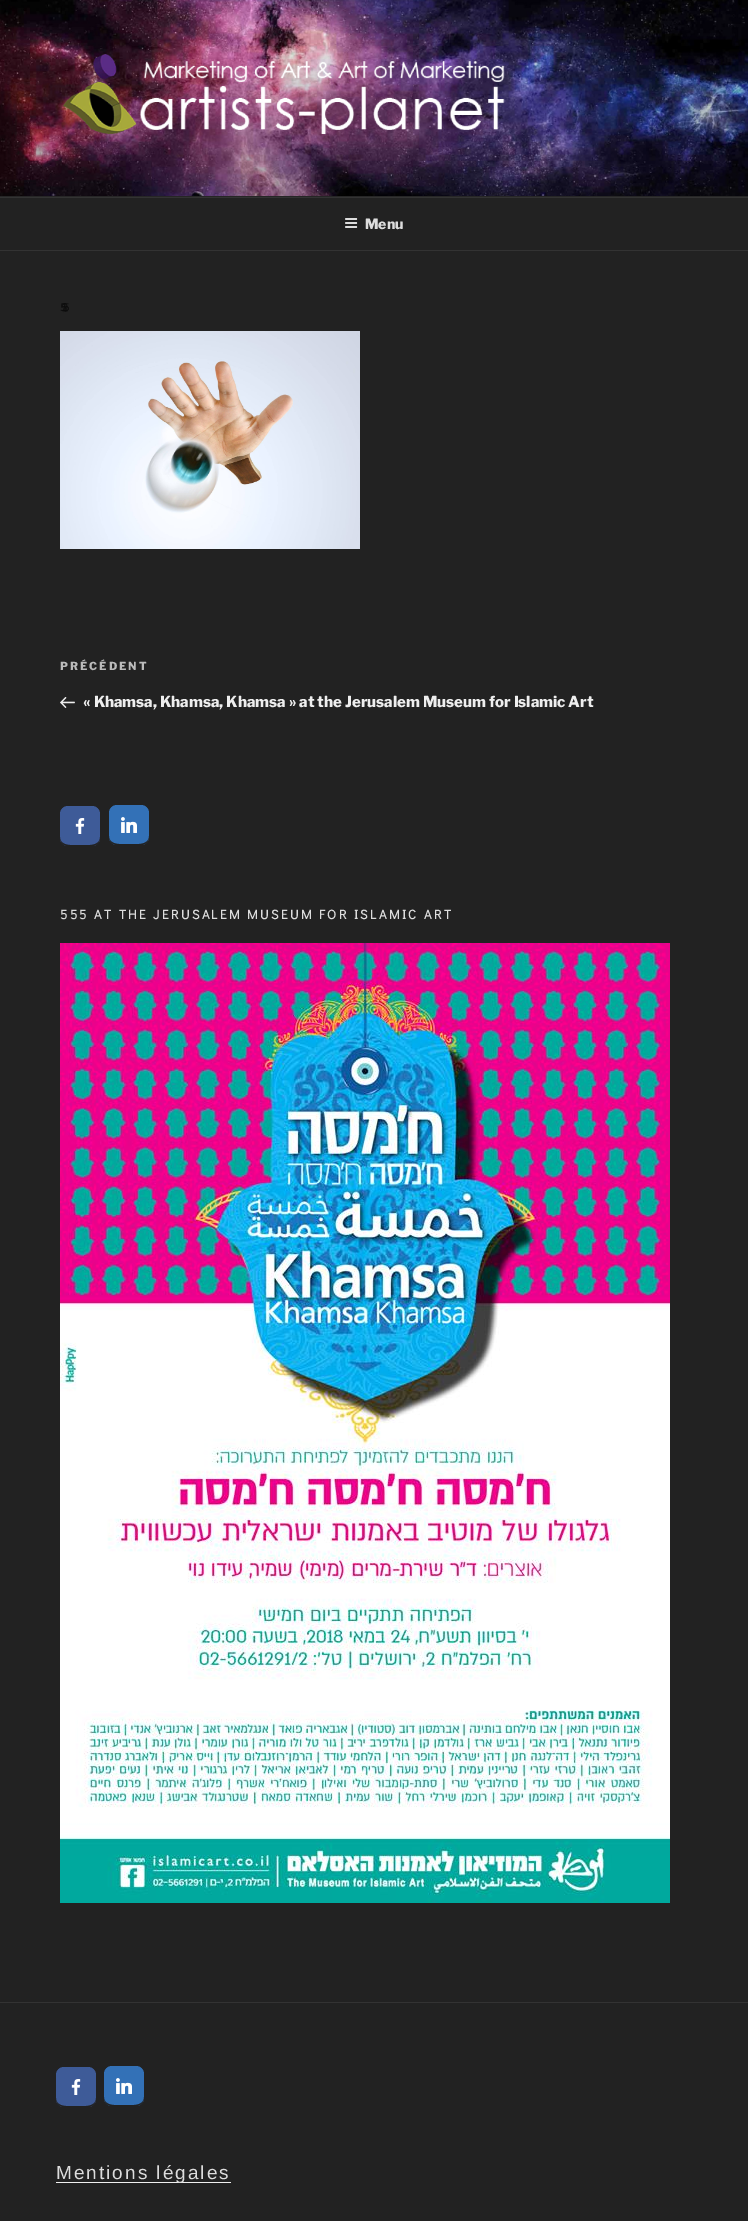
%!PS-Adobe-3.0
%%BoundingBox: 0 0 748 2221
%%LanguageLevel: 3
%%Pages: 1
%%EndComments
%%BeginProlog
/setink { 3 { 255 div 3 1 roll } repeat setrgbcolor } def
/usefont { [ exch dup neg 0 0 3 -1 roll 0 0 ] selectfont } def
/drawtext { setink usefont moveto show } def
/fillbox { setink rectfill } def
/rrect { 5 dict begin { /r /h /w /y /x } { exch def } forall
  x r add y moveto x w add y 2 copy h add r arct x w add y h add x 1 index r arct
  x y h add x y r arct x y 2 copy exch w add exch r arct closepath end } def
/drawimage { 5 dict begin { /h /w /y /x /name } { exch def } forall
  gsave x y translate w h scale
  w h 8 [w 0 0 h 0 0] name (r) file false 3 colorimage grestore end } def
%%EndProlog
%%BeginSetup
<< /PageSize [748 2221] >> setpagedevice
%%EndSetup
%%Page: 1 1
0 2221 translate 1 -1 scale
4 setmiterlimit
0 0 748 2221 34 34 34 fillbox
0 196 748 1 38 38 38 fillbox
(assets/img1.rgb) 0 0 748 196 drawimage
(assets/img2.rgb) 63 54 442 80 drawimage
0 197 748 1 51 51 51 fillbox
0 250 748 1 51 51 51 fillbox
(assets/img3.rgb) 345 218 13 10 drawimage
(Menu) 365 229 /LibreFranklin-Thin 14 221 221 221 drawtext
/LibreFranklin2-Thin 10 usefont
12 12 12 setink
60 311 moveto -5 0 (555 2_o) ashow
(assets/img4.rgb) 60 331 300 218 drawimage
/LibreFranklin-Thin 11 usefont
187 187 187 setink
60 670 moveto 2 0 (PRÉCÉDENT) ashow
(assets/img5.rgb) 60 697 15 11 drawimage
(« Khamsa, Khamsa, Khamsa » at the Jerusalem Museum for Islamic Art) 83 707 /LibreFranklin-Thin 15 238 238 238 drawtext
62 91 152 setink
60 806 40 40 8 rrect fill
34 34 34 setink
60 837 moveto 60 849 72 846 80 846 curveto 88 846 100 849 100 837 curveto 100 847 86 845 80 845 curveto 74 845 60 847 60 837 curveto closepath fill
(assets/img6.rgb) 75 818 10 16 drawimage
51 113 183 setink
109 805 40 40 8 rrect fill
34 34 34 setink
109 836 moveto 109 848 121 845 129 845 curveto 137 845 149 848 149 836 curveto 149 846 135 844 129 844 curveto 123 844 109 846 109 836 curveto closepath fill
(assets/img7.rgb) 121 817 16 16 drawimage
/DidactGothic-Bold 13 usefont
221 221 221 setink
60 919 moveto 2.35 0 (555 AT THE JERUSALEM MUSEUM FOR ISLAMIC ART) ashow
(assets/img8.rgb) 60 943 610 960 drawimage
0 2002 748 1 51 51 51 fillbox
62 91 152 setink
56 2067 40 40 8 rrect fill
34 34 34 setink
56 2098 moveto 56 2110 68 2107 76 2107 curveto 84 2107 96 2110 96 2098 curveto 96 2108 82 2106 76 2106 curveto 70 2106 56 2108 56 2098 curveto closepath fill
(assets/img6.rgb) 71 2079 10 16 drawimage
51 113 183 setink
104 2066 40 40 8 rrect fill
34 34 34 setink
104 2097 moveto 104 2109 116 2106 124 2106 curveto 132 2106 144 2109 144 2097 curveto 144 2107 130 2105 124 2105 curveto 118 2105 104 2107 104 2097 curveto closepath fill
(assets/img7.rgb) 116 2078 16 16 drawimage
56 2182 175 1 240 240 240 fillbox
/LiberationSans-Regular 19 usefont
221 221 221 setink
56 2179 moveto 2 0 (Mentions légales) ashow
showpage
%%EOF
